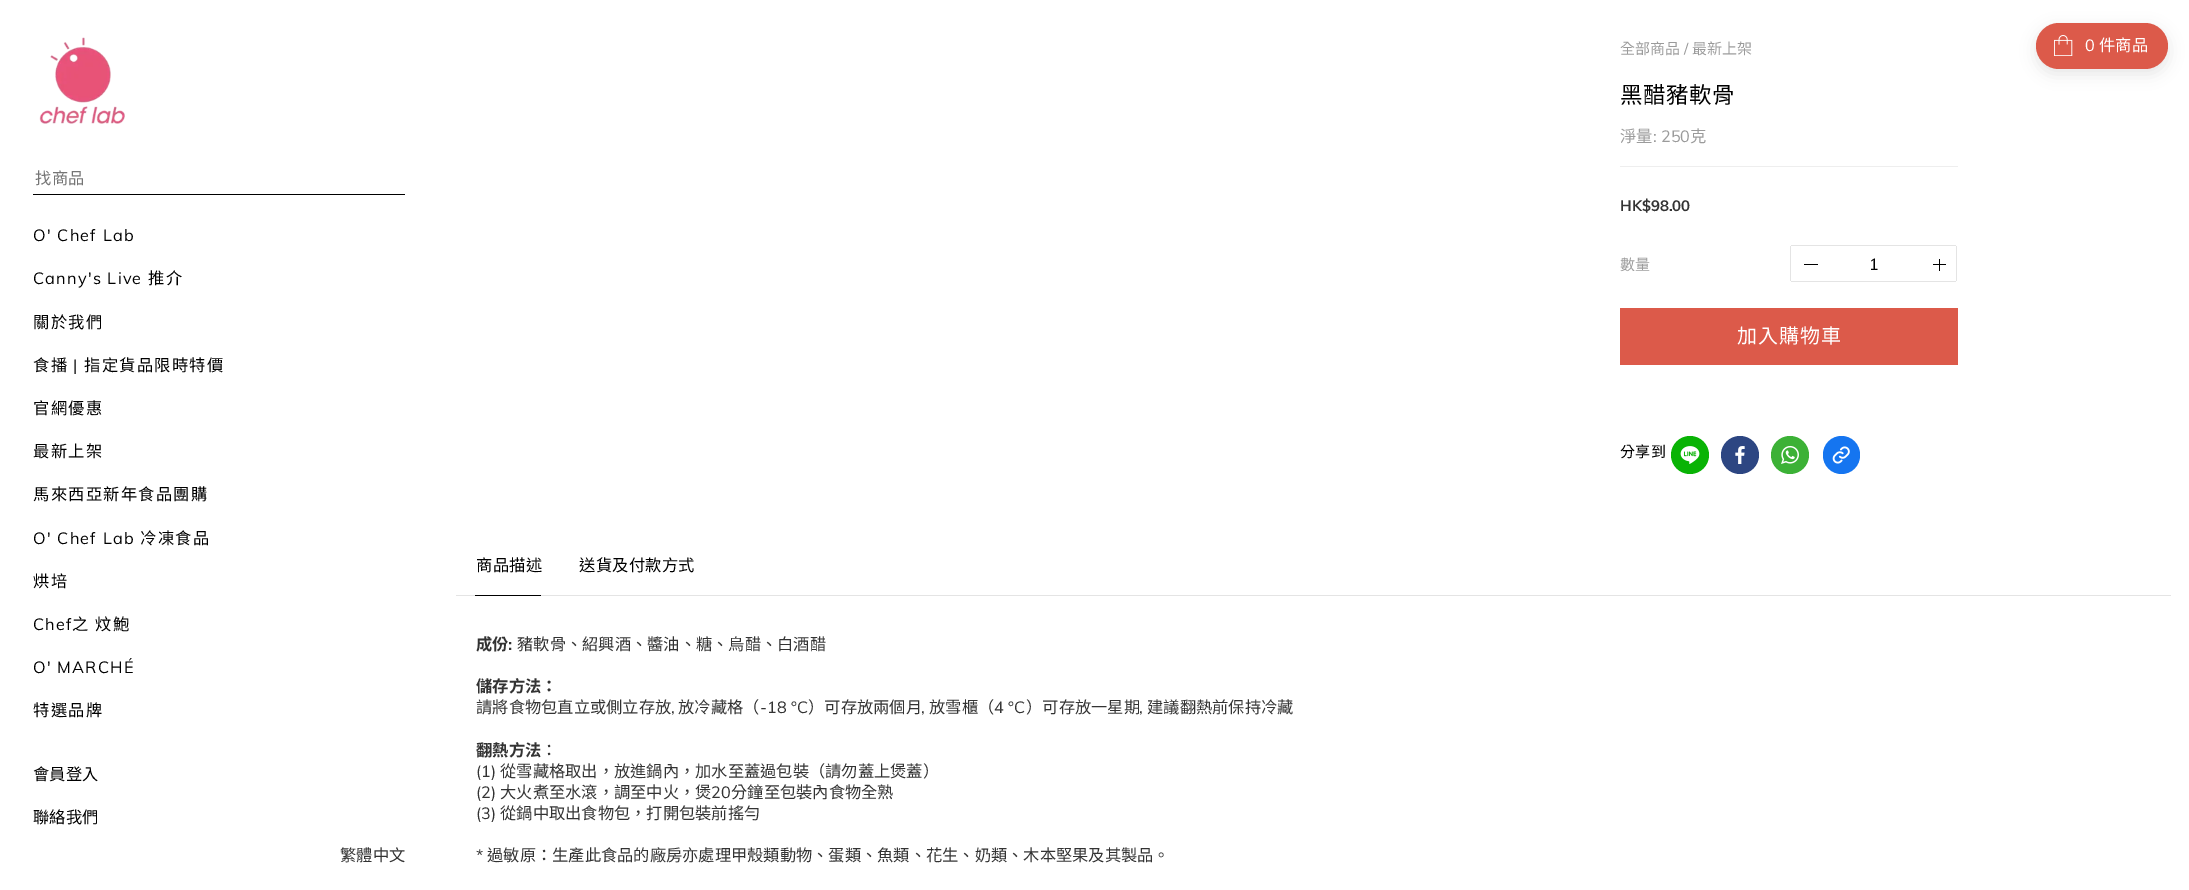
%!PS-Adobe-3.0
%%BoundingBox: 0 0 2189 890
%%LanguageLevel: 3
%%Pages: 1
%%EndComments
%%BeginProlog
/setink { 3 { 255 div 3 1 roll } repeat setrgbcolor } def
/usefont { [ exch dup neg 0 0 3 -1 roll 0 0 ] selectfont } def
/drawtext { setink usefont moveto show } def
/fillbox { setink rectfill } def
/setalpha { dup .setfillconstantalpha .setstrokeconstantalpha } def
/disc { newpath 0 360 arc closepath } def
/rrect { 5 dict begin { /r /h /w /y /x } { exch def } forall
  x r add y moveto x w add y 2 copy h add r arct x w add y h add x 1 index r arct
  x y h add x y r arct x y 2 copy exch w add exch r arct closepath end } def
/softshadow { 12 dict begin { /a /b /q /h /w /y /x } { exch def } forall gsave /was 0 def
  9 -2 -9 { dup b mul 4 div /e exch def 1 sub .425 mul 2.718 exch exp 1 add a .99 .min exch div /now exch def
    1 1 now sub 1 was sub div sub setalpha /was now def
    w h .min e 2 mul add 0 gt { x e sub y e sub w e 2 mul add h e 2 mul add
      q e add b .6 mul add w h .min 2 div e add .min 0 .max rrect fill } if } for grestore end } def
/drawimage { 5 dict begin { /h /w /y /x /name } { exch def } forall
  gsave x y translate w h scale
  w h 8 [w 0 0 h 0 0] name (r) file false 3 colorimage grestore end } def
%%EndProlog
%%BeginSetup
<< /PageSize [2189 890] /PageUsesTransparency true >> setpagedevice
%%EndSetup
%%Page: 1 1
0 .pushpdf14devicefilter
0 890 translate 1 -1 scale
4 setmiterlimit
0 0 2189 890 255 255 255 fillbox
(assets/img1.rgb) 39 37 86 87 drawimage
33 194 372 1 0 0 0 fillbox
/NotoSansTC-Regular 16.25 usefont
117 117 117 setink
35 184 moveto 0.25 0 (找商品) ashow
/Muli-Regular 16.25 usefont
0 0 0 setink
33 241 moveto 1.25 0 (O' Chef Lab) ashow
33 284 moveto 1.25 0 (Canny's Live) ashow
/NotoSansTC-Regular 16.25 usefont
148 284 moveto 1.25 0 (推介) ashow
33 328 moveto 1.25 0 (關於我們) ashow
33 371 moveto 1.25 0 (食播) ashow
/Muli-Regular 16.25 usefont
73 371 moveto 1.25 0 (|) ashow
/NotoSansTC-Regular 16.25 usefont
84 371 moveto 1.25 0 (指定貨品限時特價) ashow
33 414 moveto 1.25 0 (官網優惠) ashow
33 457 moveto 1.25 0 (最新上架) ashow
33 500 moveto 1.25 0 (馬來西亞新年食品團購) ashow
/Muli-Regular 16.25 usefont
33 544 moveto 1.25 0 (O' Chef Lab) ashow
/NotoSansTC-Regular 16.25 usefont
140 544 moveto 1.25 0 (冷凍食品) ashow
33 587 moveto 1.25 0 (烘培) ashow
/Muli-Regular 16.25 usefont
33 630 moveto 1.25 0 (Chef) ashow
/NotoSansTC-Regular 16.25 usefont
72 630 moveto 1 0 32 1.25 0 (之 炆鮑) awidthshow
/Muli-Regular 16.25 usefont
33 673 moveto 1.25 0 (O' MARCHÉ) ashow
/NotoSansTC-Regular 16.25 usefont
33 716 moveto 1.25 0 (特選品牌) ashow
(會員登入) 33 780 /NotoSansTC-Regular 16.25 0 0 0 drawtext
(聯絡我們) 33 823 /NotoSansTC-Regular 16.25 0 0 0 drawtext
(繁體中文) 340 861 /NotoSansTC-Regular 16.25 51 51 51 drawtext
(全部商品) 1620 54 /NotoSansTC-Regular 15 155 155 155 drawtext
(/) 1684 54 /Muli-Regular 15 155 155 155 drawtext
(最新上架) 1692 54 /NotoSansTC-Regular 15 155 155 155 drawtext
/NotoSansTC-Regular 22.5 usefont
0 0 0 setink
1620 103 moveto 0.5 0 (黑醋豬軟骨) ashow
(淨量) 1620 142 /NotoSansTC-Regular 16.25 155 155 155 drawtext
(: 250) 1653 142 /Muli-Regular 16.25 155 155 155 drawtext
(克) 1690 142 /NotoSansTC-Regular 16.25 155 155 155 drawtext
1620 166 338 1 238 238 238 fillbox
(HK$98.00) 1620 211 /Muli-Bold 15 51 51 51 drawtext
/NotoSansTC-Regular 15 usefont
155 155 155 setink
1620 270 moveto 0.25 0 (數量) ashow
1791 245 165 1 228 228 228 fillbox
1791 281 165 1 228 228 228 fillbox
1790 246 1 35 228 228 228 fillbox
1804 264 14 1 0 0 0 fillbox
(1) 1869 270 /Muli-Regular 16.25 0 0 0 drawtext
1956 246 1 35 228 228 228 fillbox
1933 264 13 1 0 0 0 fillbox
1939 259 1 12 0 0 0 fillbox
1620 308 338 57 220 90 74 fillbox
/NotoSansTC-Regular 20 usefont
255 255 255 setink
1737 343 moveto 1 0 (加入購物車) ashow
/NotoSansTC-Regular 15 usefont
0 0 0 setink
1620 457 moveto 0.25 0 (分享到) ashow
9 179 5 setink
1690 455 19 disc fill
(assets/img2.rgb) 1680 446 20 18 drawimage
45 70 130 setink
1740 455 19 disc fill
(assets/img3.rgb) 1735 446 10 18 drawimage
60 177 54 setink
1790 455 19 disc fill
(assets/img4.rgb) 1781 445 18 19 drawimage
21 117 240 setink
1823 436 37 38 18.5 rrect fill
(assets/img5.rgb) 1832 446 18 18 drawimage
456 595 1715 1 228 228 228 fillbox
475 595 66 1 0 0 0 fillbox
/NotoSansTC-Regular 16.25 usefont
476 571 moveto 0.25 0 (商品描述) ashow
579 571 moveto 0.25 0 (送貨及付款方式) ashow
(成份) 476 650 /NotoSansTC-Bold 16.25 51 51 51 drawtext
(:) 508 650 /Muli-Bold 16.25 51 51 51 drawtext
(豬軟骨、紹興酒、醬油、糖、烏醋、白酒醋) 517 650 /NotoSansTC-Regular 16.25 51 51 51 drawtext
(儲存方法：) 476 692 /NotoSansTC-Bold 16.25 51 51 51 drawtext
(請將食物包直立或側立存放) 476 713 /NotoSansTC-Regular 16.25 51 51 51 drawtext
(,) 671 713 /Muli-Regular 16.25 51 51 51 drawtext
(放冷藏格（) 678 713 /NotoSansTC-Regular 16.25 51 51 51 drawtext
(-18 °C) 760 713 /Muli-Regular 16.25 51 51 51 drawtext
(）可存放兩個月) 808 713 /NotoSansTC-Regular 16.25 51 51 51 drawtext
(,) 921 713 /Muli-Regular 16.25 51 51 51 drawtext
(放雪櫃（) 929 713 /NotoSansTC-Regular 16.25 51 51 51 drawtext
(4 °C) 994 713 /Muli-Regular 16.25 51 51 51 drawtext
(）可存放一星期) 1026 713 /NotoSansTC-Regular 16.25 51 51 51 drawtext
(,) 1139 713 /Muli-Regular 16.25 51 51 51 drawtext
(建議翻熱前保持冷藏) 1147 713 /NotoSansTC-Regular 16.25 51 51 51 drawtext
(翻熱方法) 476 756 /NotoSansTC-Bold 16.25 51 51 51 drawtext
(：) 541 756 /NotoSansTC-Regular 16.25 51 51 51 drawtext
(\(1\)) 476 777 /Muli-Regular 16.25 51 51 51 drawtext
(從雪藏格取出，放進鍋內，加水至蓋過包裝（請勿蓋上煲蓋）) 500 777 /NotoSansTC-Regular 16.25 51 51 51 drawtext
(\(2\)) 476 798 /Muli-Regular 16.25 51 51 51 drawtext
(大火煮至水滾，調至中火，煲) 500 798 /NotoSansTC-Regular 16.25 51 51 51 drawtext
(20) 711 798 /Muli-Regular 16.25 51 51 51 drawtext
(分鐘至包裝內食物全熟) 731 798 /NotoSansTC-Regular 16.25 51 51 51 drawtext
(\(3\)) 476 819 /Muli-Regular 16.25 51 51 51 drawtext
(從鍋中取出食物包，打開包裝前搖勻) 500 819 /NotoSansTC-Regular 16.25 51 51 51 drawtext
(*) 476 861 /Muli-Regular 16.25 51 51 51 drawtext
(過敏原：生產此食品的廠房亦處理甲殼類動物、蛋類、魚類、花生、奶類、木本堅果及其製品。) 487 861 /NotoSansTC-Regular 16.25 51 51 51 drawtext
0 0 0 setink
2036 28 132 46 23 7.5 0.1 softshadow
220 90 74 setink
2036 23 132 46 23 rrect fill
(assets/img6.rgb) 2054 35 19 21 drawimage
(0) 2085 51 /Muli-Regular 16.25 255 255 255 drawtext
(件商品) 2099 51 /NotoSansTC-Regular 16.25 255 255 255 drawtext
.poppdf14devicefilter showpage
%%EOF
